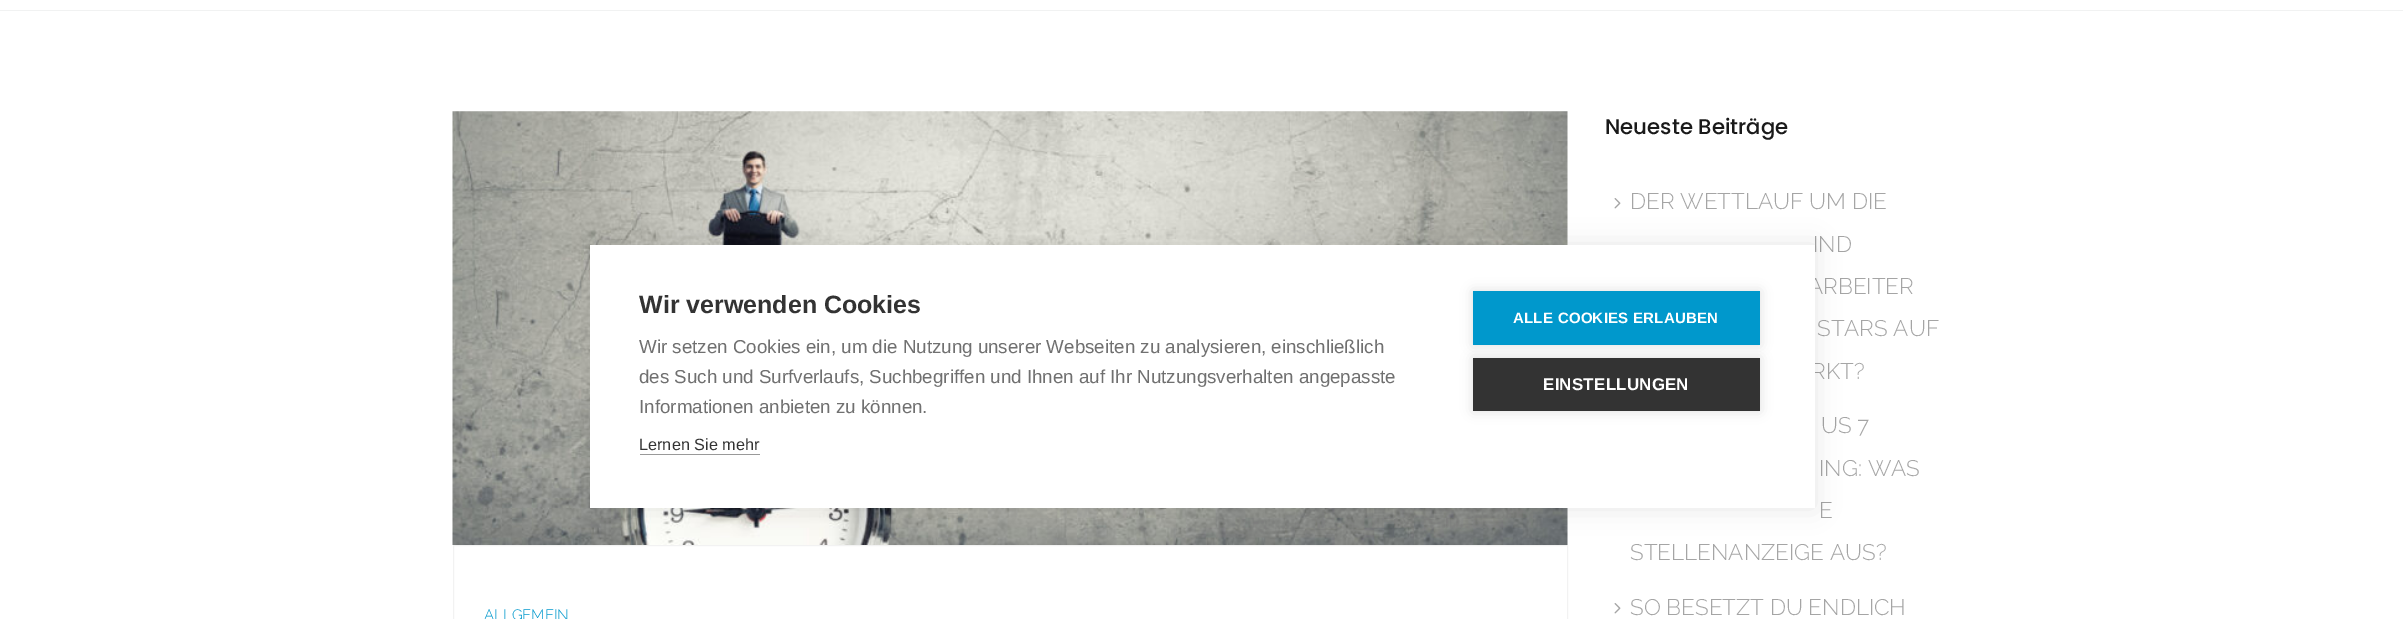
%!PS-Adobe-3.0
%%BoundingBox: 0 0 2403 619
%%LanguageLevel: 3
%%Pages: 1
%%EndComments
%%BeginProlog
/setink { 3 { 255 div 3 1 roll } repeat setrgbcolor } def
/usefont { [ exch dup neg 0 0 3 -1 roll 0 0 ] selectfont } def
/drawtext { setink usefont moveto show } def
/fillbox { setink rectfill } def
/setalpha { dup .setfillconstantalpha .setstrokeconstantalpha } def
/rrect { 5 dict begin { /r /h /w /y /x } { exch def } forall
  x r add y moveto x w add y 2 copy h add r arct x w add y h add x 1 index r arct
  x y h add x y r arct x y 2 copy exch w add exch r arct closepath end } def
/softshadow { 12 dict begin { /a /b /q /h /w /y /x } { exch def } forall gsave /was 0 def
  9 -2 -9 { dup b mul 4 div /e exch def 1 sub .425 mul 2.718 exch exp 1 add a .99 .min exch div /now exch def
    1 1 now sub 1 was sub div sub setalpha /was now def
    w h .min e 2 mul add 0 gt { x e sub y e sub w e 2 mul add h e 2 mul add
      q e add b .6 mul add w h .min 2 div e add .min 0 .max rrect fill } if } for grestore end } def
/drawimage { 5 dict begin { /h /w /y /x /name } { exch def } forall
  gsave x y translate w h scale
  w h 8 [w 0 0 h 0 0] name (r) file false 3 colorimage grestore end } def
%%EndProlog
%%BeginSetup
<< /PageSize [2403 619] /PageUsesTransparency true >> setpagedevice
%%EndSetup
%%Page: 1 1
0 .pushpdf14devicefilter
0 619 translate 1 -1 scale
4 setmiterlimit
0 0 2403 619 255 255 255 fillbox
0 10 2403 1 241 242 242 fillbox
(assets/img1.rgb) 452 111 1116 434 drawimage
242 242 242 setink
453.5 545.5 1114 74 rectstroke
(ALLGEMEIN) 484 620 /Raleway-Light 15 0 152 204 drawtext
(Neueste Beiträge) 1605 134 /Poppins-Medium 21.25 26 26 26 drawtext
(assets/img2.rgb) 1614 198 7 11 drawimage
(DER WETTLAUF UM DIE) 1630 209 /Raleway-Light 22.5 165 165 165 drawtext
(IND) 1813 252 /Raleway-Light 22.5 165 165 165 drawtext
(ARBEITER) 1808 294 /Raleway-Light 22.5 165 165 165 drawtext
(STARS AUF) 1817 336 /Raleway-Light 22.5 165 165 165 drawtext
(RKT?) 1811 379 /Raleway-Light 22.5 165 165 165 drawtext
(US 7) 1821 433 /Raleway-Light 22.5 165 165 165 drawtext
(ING: WAS) 1819 476 /Raleway-Light 22.5 165 165 165 drawtext
(E) 1819 518 /Raleway-Light 22.5 165 165 165 drawtext
(STELLENANZEIGE AUS?) 1630 560 /Raleway-Light 22.5 165 165 165 drawtext
(assets/img2.rgb) 1614 603 7 11 drawimage
(SO BESETZT DU ENDLICH) 1630 615 /Raleway-Light 22.5 165 165 165 drawtext
0 0 0 setink
590 245 1225 263 0 12.5 0.1 softshadow
590 245 1225 263 255 255 255 fillbox
(Wir verwenden Cookies) 639 313 /LiberationSans-Bold 25 51 51 51 drawtext
(Wir setzen Cookies ein, um die Nutzung unserer Webseiten zu analysieren, einschließlich) 639 353 /LiberationSans-Regular 18.75 112 112 112 drawtext
(des Such und Surfverlaufs, Suchbegriffen und Ihnen auf Ihr Nutzungsverhalten angepasste) 639 383 /LiberationSans-Regular 18.75 112 112 112 drawtext
(Informationen anbieten zu können.) 639 413 /LiberationSans-Regular 18.75 112 112 112 drawtext
(Lernen Sie mehr) 639 450 /LiberationSans-Regular 16.25 51 51 51 drawtext
640 454 120 1 153 153 153 fillbox
0 0 0 setink
1473 291 287 54 0 6 0.12 softshadow
1473 291 287 54 0 152 204 fillbox
/LiberationSans-Bold 15 usefont
255 255 255 setink
1513 323 moveto 0.25 0 (ALLE COOKIES ERLAUBEN) ashow
0 0 0 setink
1473 358 287 53 0 6 0.12 softshadow
1473 358 287 53 51 51 51 fillbox
/LiberationSans-Bold 16.9 usefont
255 255 255 setink
1543 390 moveto 0.25 0 (EINSTELLUNGEN) ashow
.poppdf14devicefilter showpage
%%EOF
